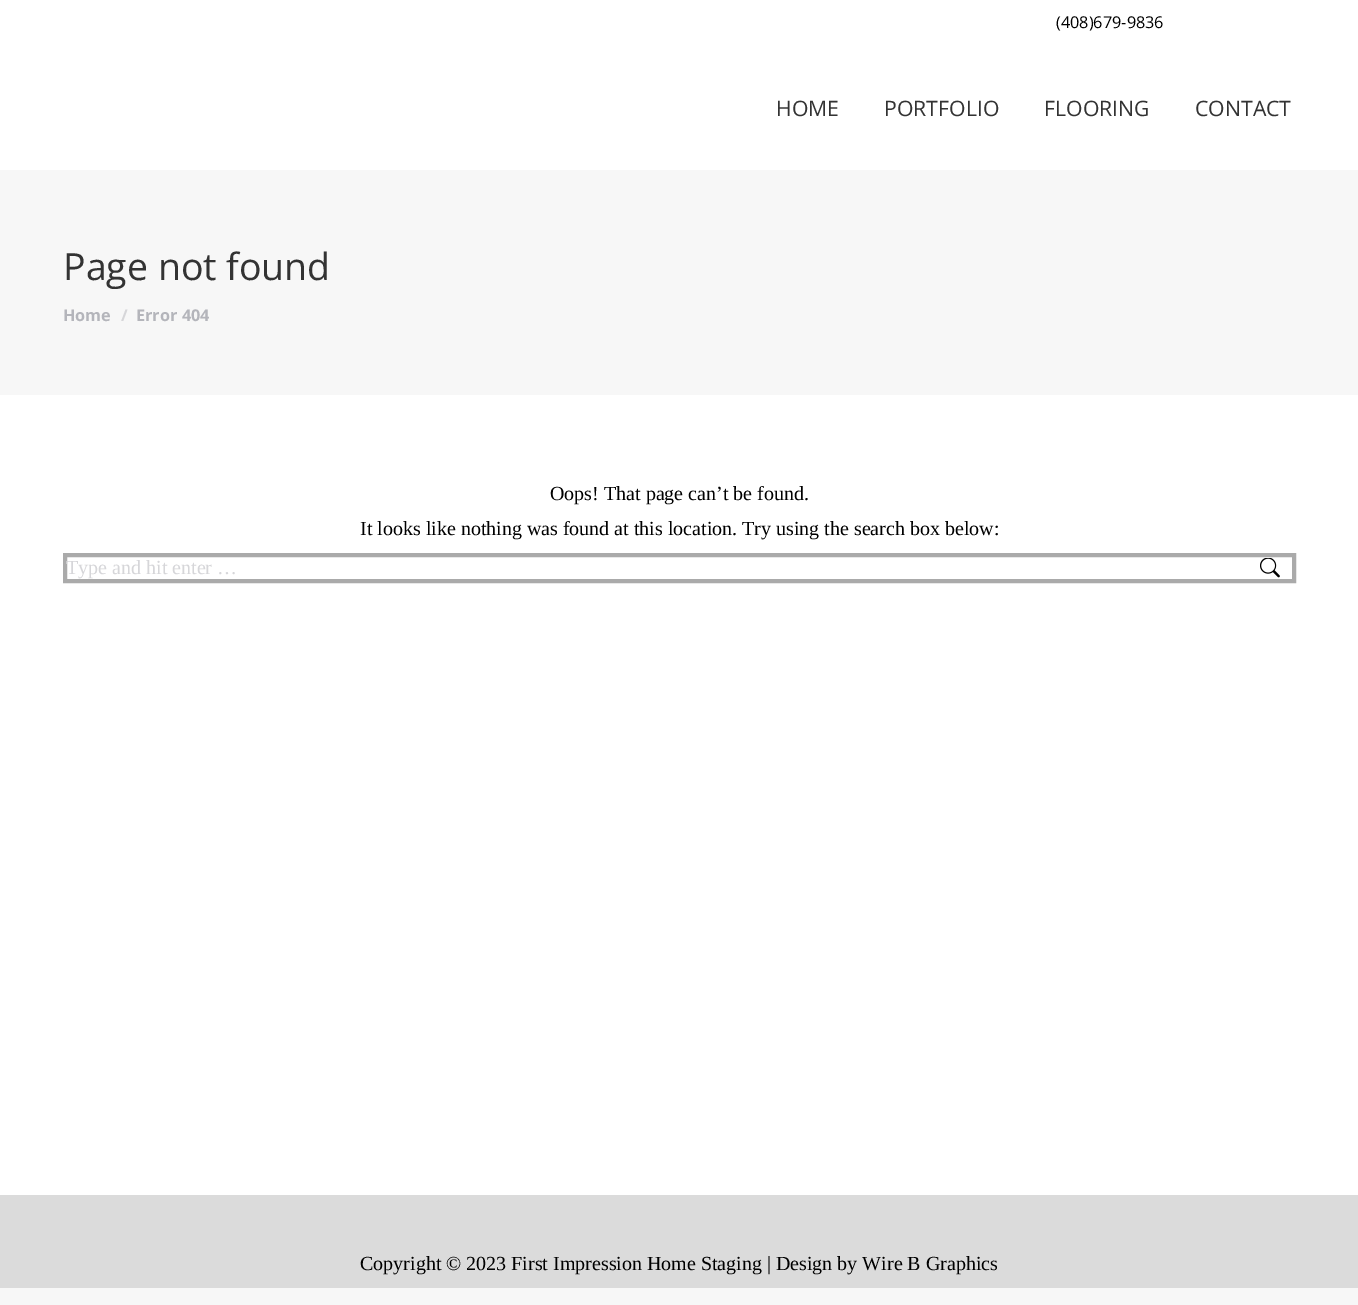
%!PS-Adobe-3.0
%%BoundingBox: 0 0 1358 1305
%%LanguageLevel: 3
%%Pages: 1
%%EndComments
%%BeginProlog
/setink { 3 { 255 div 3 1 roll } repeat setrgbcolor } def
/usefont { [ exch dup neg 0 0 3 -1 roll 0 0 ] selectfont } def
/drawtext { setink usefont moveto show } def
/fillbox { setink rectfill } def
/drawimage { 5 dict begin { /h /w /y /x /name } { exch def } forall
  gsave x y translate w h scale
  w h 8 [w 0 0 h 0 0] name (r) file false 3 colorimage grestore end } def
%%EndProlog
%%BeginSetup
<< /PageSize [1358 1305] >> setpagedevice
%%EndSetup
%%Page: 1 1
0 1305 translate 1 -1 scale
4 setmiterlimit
0 0 1358 1305 247 247 247 fillbox
0 0 1358 1195 255 255 255 fillbox
(\(408\)679-9836) 1056 28 /OpenSans-Regular 16.25 0 0 0 drawtext
(HOME) 776 116 /OpenSans-Regular 21.25 51 51 51 drawtext
(PORTFOLIO) 884 116 /OpenSans-Regular 21.25 51 51 51 drawtext
(FLOORING) 1044 116 /OpenSans-Regular 21.25 51 51 51 drawtext
(CONTACT) 1195 116 /OpenSans-Regular 21.25 51 51 51 drawtext
0 170 1358 225 247 247 247 fillbox
(Page not found) 63 280 /OpenSans-Regular 37.5 51 51 51 drawtext
(Home) 63 321 /OpenSans-Bold 16.25 180 181 187 drawtext
(/) 121 321 /OpenSans-Bold 16.25 214 214 217 drawtext
(Error 404) 136 321 /OpenSans-Bold 16.25 180 181 187 drawtext
(Oops! That page can’t be found.) 550 500 /LiberationSerif-Regular 20 0 0 0 drawtext
(It looks like nothing was found at this location. Try using the search box below:) 360 535 /LiberationSerif-Regular 20 0 0 0 drawtext
170 170 170 setink
4 setlinewidth
65 555 1229 26 rectstroke
(Type and hit enter …) 66 574 /LiberationSerif-Regular 20 214 214 217 drawtext
(assets/img1.rgb) 1260 558 20 20 drawimage
0 1195 1358 93 219 219 219 fillbox
(Copyright © 2023 First Impression Home Staging | Design by Wire B Graphics) 360 1270 /LiberationSerif-Regular 20 0 0 0 drawtext
showpage
%%EOF
